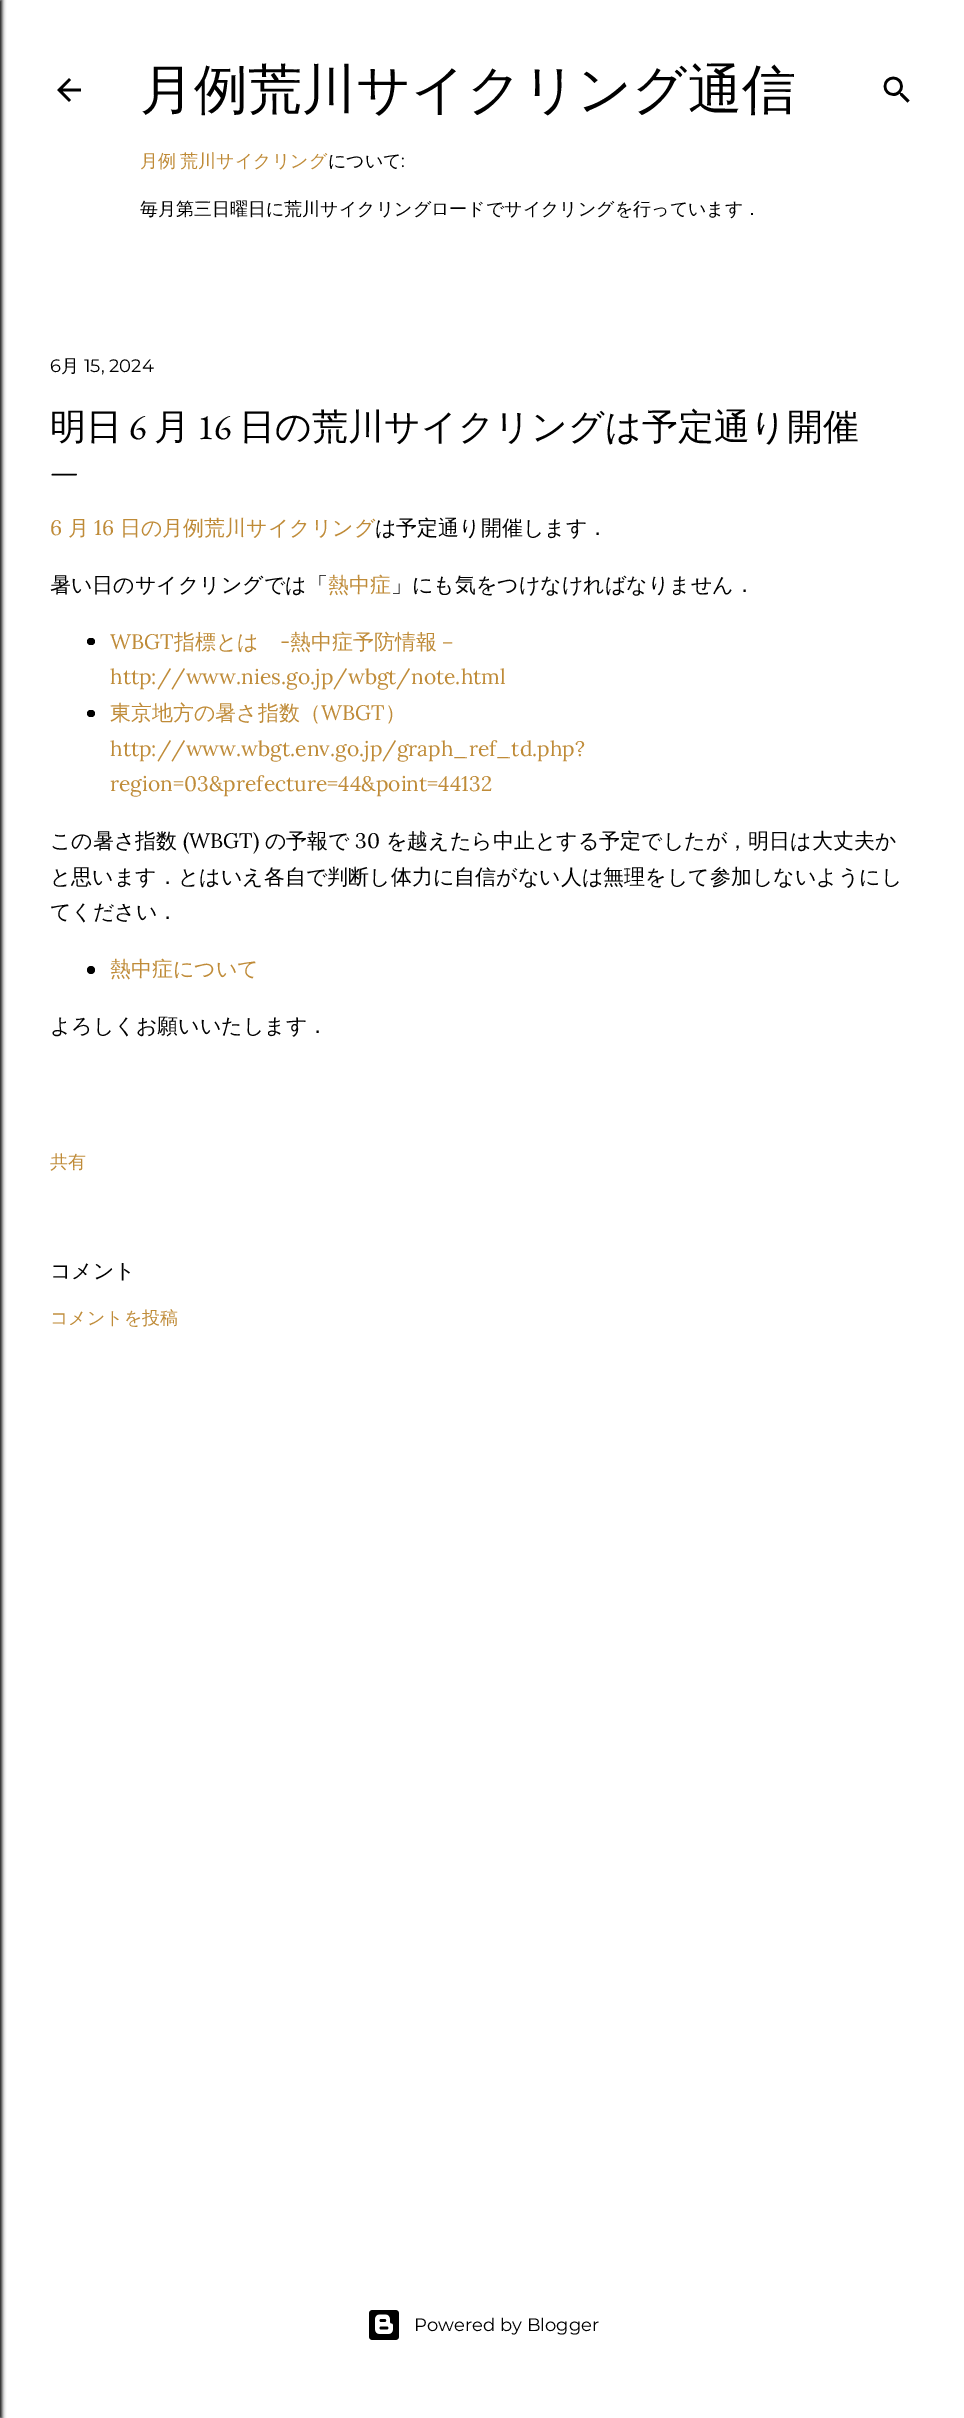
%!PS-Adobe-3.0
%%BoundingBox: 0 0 964 2418
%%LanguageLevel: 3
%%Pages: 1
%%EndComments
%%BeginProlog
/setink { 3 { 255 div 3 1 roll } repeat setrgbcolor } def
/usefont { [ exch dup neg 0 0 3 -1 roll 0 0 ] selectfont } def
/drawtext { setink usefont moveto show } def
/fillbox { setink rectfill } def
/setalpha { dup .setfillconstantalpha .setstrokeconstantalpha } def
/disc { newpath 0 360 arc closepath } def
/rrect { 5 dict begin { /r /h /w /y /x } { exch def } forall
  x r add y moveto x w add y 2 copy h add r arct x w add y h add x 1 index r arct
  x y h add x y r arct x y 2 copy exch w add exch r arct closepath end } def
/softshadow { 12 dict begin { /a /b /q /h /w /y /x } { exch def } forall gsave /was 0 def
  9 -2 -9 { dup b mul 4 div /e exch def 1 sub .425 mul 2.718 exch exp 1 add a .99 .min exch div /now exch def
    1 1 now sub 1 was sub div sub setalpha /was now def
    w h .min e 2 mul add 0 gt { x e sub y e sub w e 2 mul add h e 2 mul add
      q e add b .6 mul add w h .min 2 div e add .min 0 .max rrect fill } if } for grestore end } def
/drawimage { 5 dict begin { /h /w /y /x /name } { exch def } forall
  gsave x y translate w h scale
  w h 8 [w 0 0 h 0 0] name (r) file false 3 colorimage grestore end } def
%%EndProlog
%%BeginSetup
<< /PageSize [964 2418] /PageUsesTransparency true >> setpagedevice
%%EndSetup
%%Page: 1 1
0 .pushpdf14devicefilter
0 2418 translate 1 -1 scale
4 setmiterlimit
0 0 964 2418 255 255 255 fillbox
0 0 0 setink
-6 0 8 2418 0 2 1 softshadow
(assets/img1.rgb) 57 78 24 24 drawimage
(月例荒川サイクリング通信) 140 108 /WenQuanYiZenHei-Medium 54 0 0 0 drawtext
/WenQuanYiZenHei-Medium 18 usefont
191 139 56 setink
140 167 moveto -1 0 32 (月例 荒川サイクリング) widthshow
(について) 328 167 /WenQuanYiZenHei-Medium 18 0 0 0 drawtext
(:) 401 167 /Montserrat-Regular 18 0 0 0 drawtext
(毎月第三日曜日に荒川サイクリングロードでサイクリングを行っています．) 140 215 /WenQuanYiZenHei-Medium 18 0 0 0 drawtext
(assets/img2.rgb) 883 76 27 27 drawimage
(6) 50 372 /Montserrat-Regular 18 0 0 0 drawtext
(月) 61 372 /WenQuanYiZenHei-Medium 18 0 0 0 drawtext
(15, 2024) 84 372 /Montserrat-Regular 18 0 0 0 drawtext
(明日) 50 439 /WenQuanYiZenHei-Medium 36 0 0 0 drawtext
(6) 129 439 /EBGaramond-Regular 36 0 0 0 drawtext
(月) 154 439 /WenQuanYiZenHei-Medium 36 0 0 0 drawtext
(16) 197 439 /EBGaramond-Regular 36 0 0 0 drawtext
(日の荒川サイクリングは予定通り開催) 239 439 /WenQuanYiZenHei-Medium 36 0 0 0 drawtext
(—) 50 481 /EBGaramond-Regular 30 0 0 0 drawtext
(6) 50 535 /Lora-Regular 21 191 139 56 drawtext
(月) 68 535 /WenQuanYiZenHei-Medium 21 191 139 56 drawtext
(16) 94 535 /Lora-Regular 21 191 139 56 drawtext
(日の月例荒川サイクリング) 120 535 /WenQuanYiZenHei-Medium 21 191 139 56 drawtext
(は予定通り開催します．) 375 535 /WenQuanYiZenHei-Medium 21 0 0 0 drawtext
(暑い日のサイクリングでは「) 50 592 /WenQuanYiZenHei-Medium 21 0 0 0 drawtext
(熱中症) 328 592 /WenQuanYiZenHei-Medium 21 191 139 56 drawtext
(」にも気をつけなければなりません．) 391 592 /WenQuanYiZenHei-Medium 21 0 0 0 drawtext
87 638 8 7 3.5 rrect fill
(WBGT) 110 649 /Lora-Regular 21 191 139 56 drawtext
(指標とは) 174 649 /WenQuanYiZenHei-Medium 21 191 139 56 drawtext
(-) 280 649 /Lora-Regular 21 191 139 56 drawtext
(熱中症予防情報－) 290 649 /WenQuanYiZenHei-Medium 21 191 139 56 drawtext
(http://www.nies.go.jp/wbgt/note.html) 110 684 /Lora-Regular 21 191 139 56 drawtext
0 0 0 setink
87 710 8 7 3.5 rrect fill
(東京地方の暑さ指数（) 110 720 /WenQuanYiZenHei-Medium 21 191 139 56 drawtext
(WBGT) 321 720 /Lora-Regular 21 191 139 56 drawtext
(）) 385 720 /WenQuanYiZenHei-Medium 21 191 139 56 drawtext
(http://www.wbgt.env.go.jp/graph_ref_td.php?) 110 756 /Lora-Regular 21 191 139 56 drawtext
(region=03&prefecture=44&point=44132) 110 791 /Lora-Regular 21 191 139 56 drawtext
(この暑さ指数) 50 848 /WenQuanYiZenHei-Medium 21 0 0 0 drawtext
(\(WBGT\)) 183 848 /Lora-Regular 21 0 0 0 drawtext
(の予報で) 265 848 /WenQuanYiZenHei-Medium 21 0 0 0 drawtext
(30) 355 848 /Lora-Regular 21 0 0 0 drawtext
(を越えたら中止とする予定でしたが，明日は大丈夫か) 386 848 /WenQuanYiZenHei-Medium 21 0 0 0 drawtext
(と思います．とはいえ各自で判断し体力に自信がない人は無理をして参加しないようにし) 50 884 /WenQuanYiZenHei-Medium 21 0 0 0 drawtext
(てください．) 50 919 /WenQuanYiZenHei-Medium 21 0 0 0 drawtext
91 970 4 disc fill
(熱中症について) 110 976 /WenQuanYiZenHei-Medium 21 191 139 56 drawtext
(よろしくお願いいたします．) 50 1033 /WenQuanYiZenHei-Medium 21 0 0 0 drawtext
(共有) 50 1168 /WenQuanYiZenHei-Medium 18 191 139 56 drawtext
(コメント) 50 1278 /WenQuanYiZenHei-Medium 21 0 0 0 drawtext
(コメントを投稿) 50 1324 /WenQuanYiZenHei-Medium 18 191 139 56 drawtext
(assets/img3.rgb) 369 2310 30 30 drawimage
(Powered by Blogger) 414 2331 /Montserrat-Regular 18 0 0 0 drawtext
.poppdf14devicefilter showpage
%%EOF
